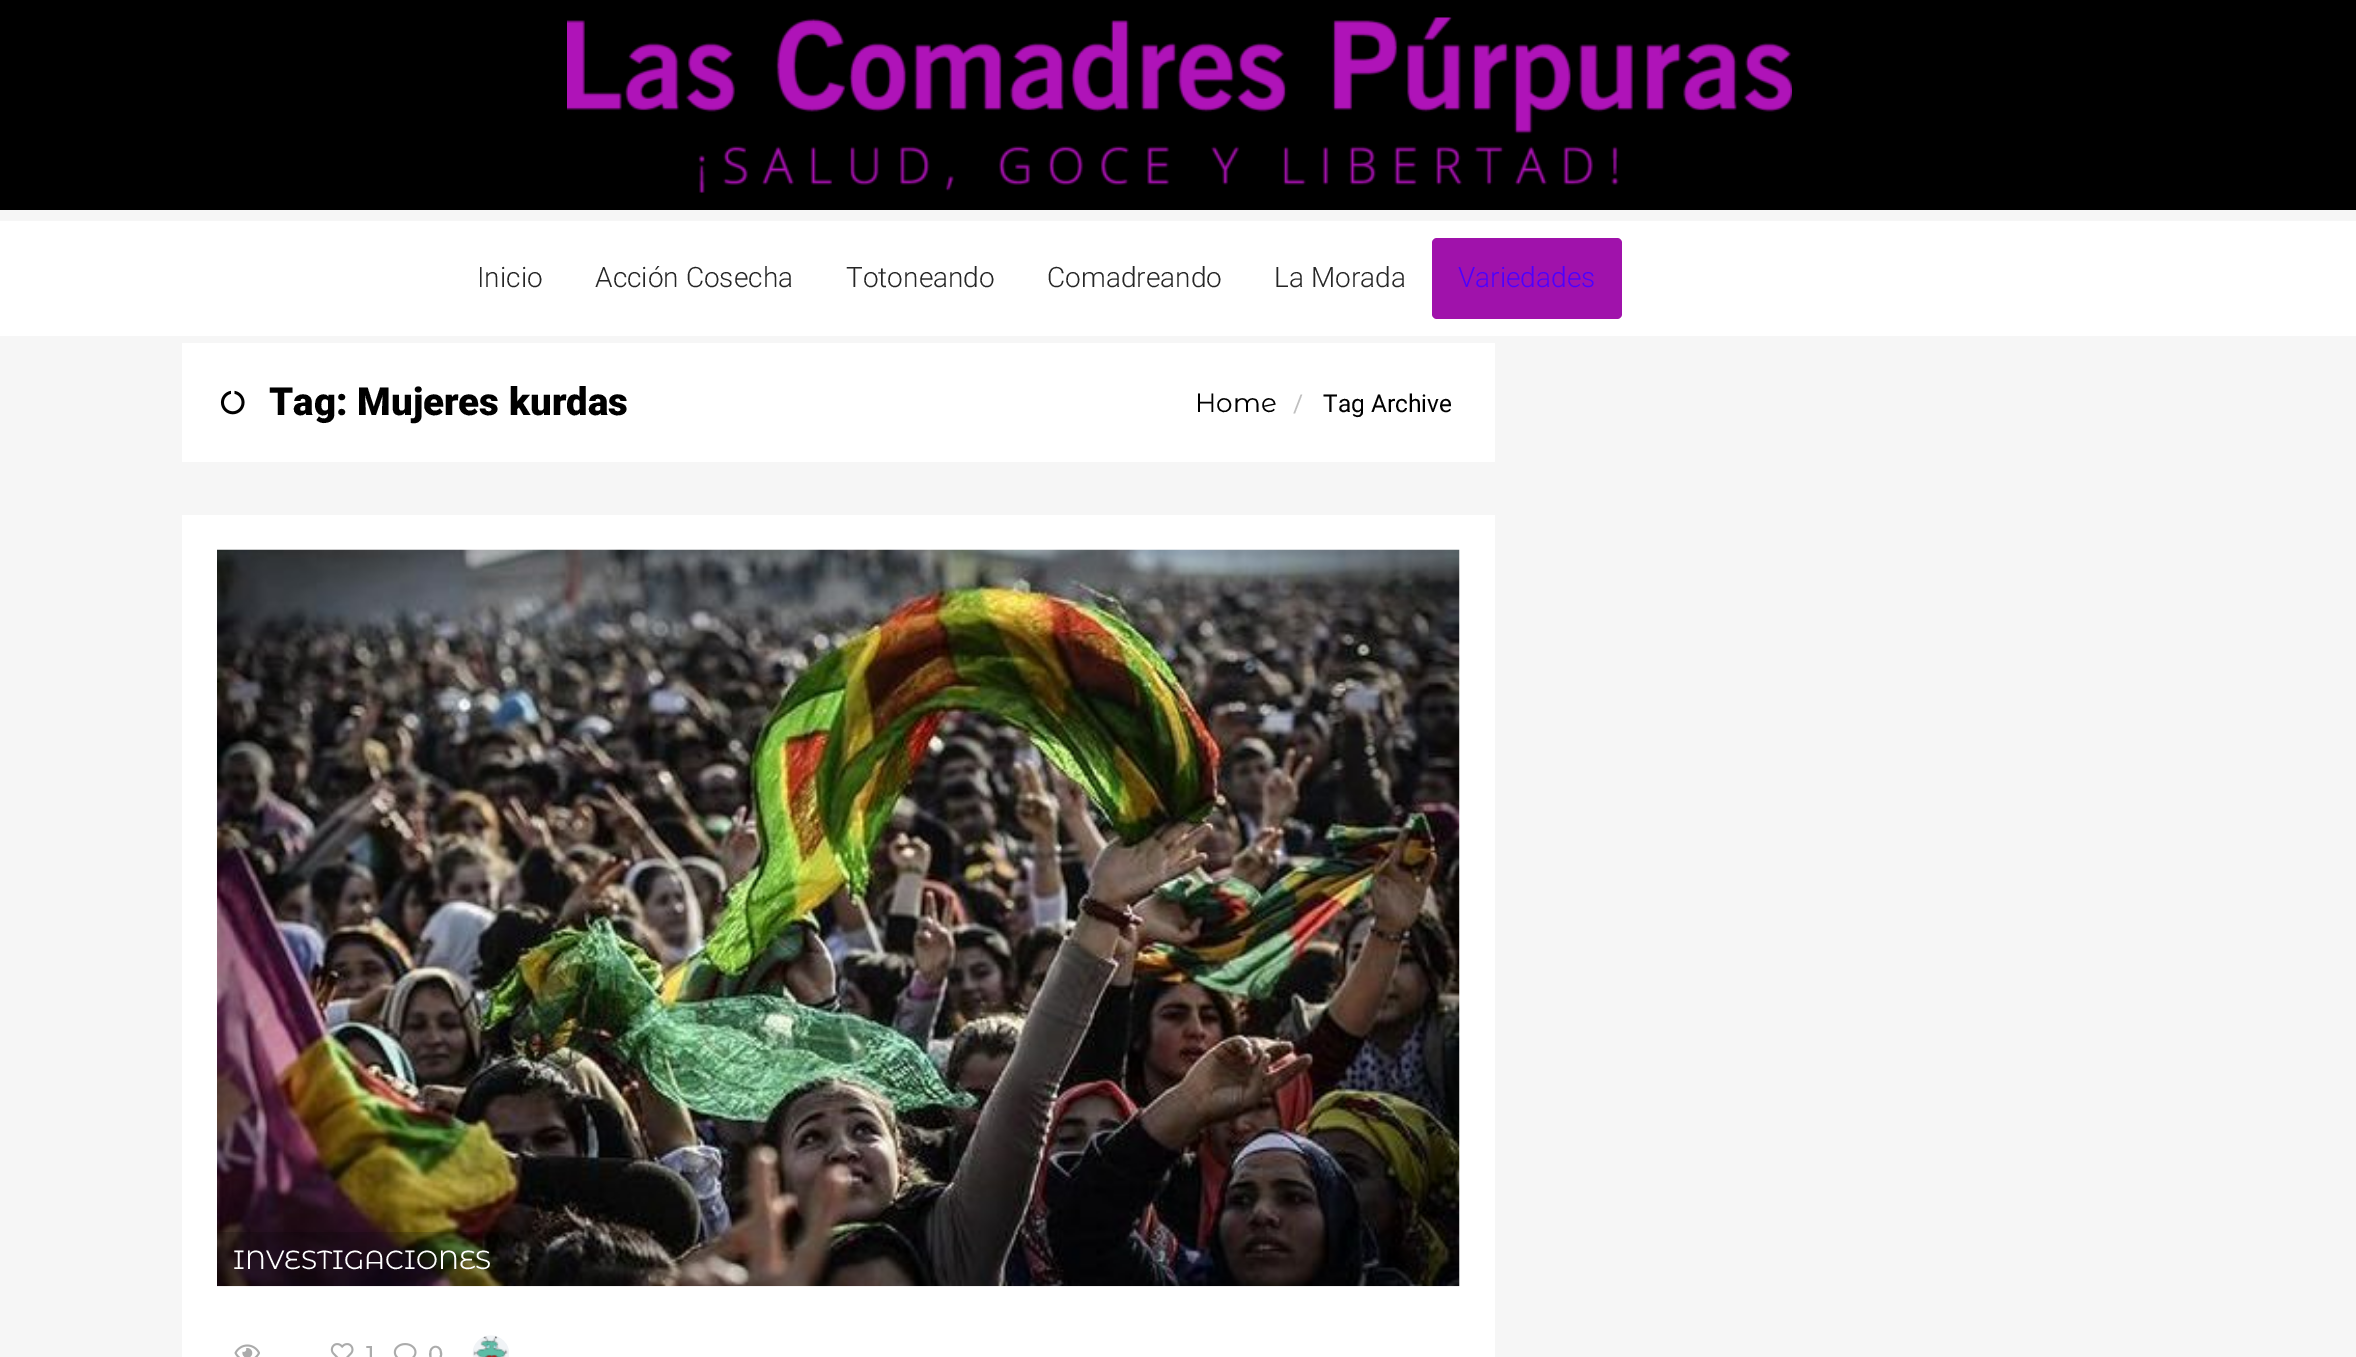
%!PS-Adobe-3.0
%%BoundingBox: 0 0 2356 1357
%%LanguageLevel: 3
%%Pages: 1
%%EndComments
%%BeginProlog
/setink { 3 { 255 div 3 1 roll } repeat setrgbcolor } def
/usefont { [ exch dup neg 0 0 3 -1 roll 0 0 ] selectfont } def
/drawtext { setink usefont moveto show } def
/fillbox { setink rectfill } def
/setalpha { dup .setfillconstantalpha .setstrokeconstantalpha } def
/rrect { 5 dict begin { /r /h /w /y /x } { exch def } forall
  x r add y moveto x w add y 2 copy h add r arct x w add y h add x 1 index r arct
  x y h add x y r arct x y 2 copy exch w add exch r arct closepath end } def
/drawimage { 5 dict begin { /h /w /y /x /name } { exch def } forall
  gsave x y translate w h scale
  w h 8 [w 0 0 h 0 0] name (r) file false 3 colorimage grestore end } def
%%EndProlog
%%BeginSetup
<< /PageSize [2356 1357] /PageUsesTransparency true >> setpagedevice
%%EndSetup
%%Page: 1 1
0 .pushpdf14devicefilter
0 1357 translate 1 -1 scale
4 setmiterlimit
0 0 2356 1357 246 246 246 fillbox
0 0 2356 210 0 0 0 fillbox
(assets/img1.rgb) 567 17 1225 176 drawimage
0 221 2356 115 255 255 255 fillbox
(Inicio) 477 287 /Roboto-Light 28 38 38 38 drawtext
(Acción Cosecha) 595 287 /Roboto-Light 28 38 38 38 drawtext
(Totoneando) 846 287 /Roboto-Light 28 38 38 38 drawtext
(Comadreando) 1047 287 /Roboto-Light 28 38 38 38 drawtext
(La Morada) 1274 287 /Roboto-Light 28 38 38 38 drawtext
160 18 171 setink
1432 238 190 81 5 rrect fill
(Variedades) 1458 287 /Roboto-Light 28 75 0 255 drawtext
182 343 1313 119 255 255 255 fillbox
(assets/img2.rgb) 220 390 25 25 drawimage
(Tag: Mujeres kurdas) 269 415 /Roboto-Black 38.5 0 0 0 drawtext
(Home) 1195 412 /MontserratAlternates-Regular 26.25 0 0 0 drawtext
(/) 1293 412 /Roboto-Regular 24.5 191 191 191 drawtext
(Tag Archive) 1323 412 /Roboto-Regular 24.5 0 0 0 drawtext
182 515 1313 842 255 255 255 fillbox
(assets/img3.rgb) 217 549 1243 738 drawimage
0.2 setalpha
217 1232 291 54 0 0 0 fillbox
1 setalpha
(INVESTIGACIONES) 233 1269 /MontserratAlternates-Regular 26.25 255 255 255 drawtext
(assets/img4.rgb) 234 1344 26 13 drawimage
(assets/img5.rgb) 330 1343 24 14 drawimage
(1) 366 1362 /Montserrat-Medium 23 171 171 171 drawtext
(assets/img6.rgb) 393 1343 24 14 drawimage
(0) 428 1362 /Montserrat-Medium 23 171 171 171 drawtext
(assets/img7.rgb) 472 1335 37 22 drawimage
.poppdf14devicefilter showpage
%%EOF
